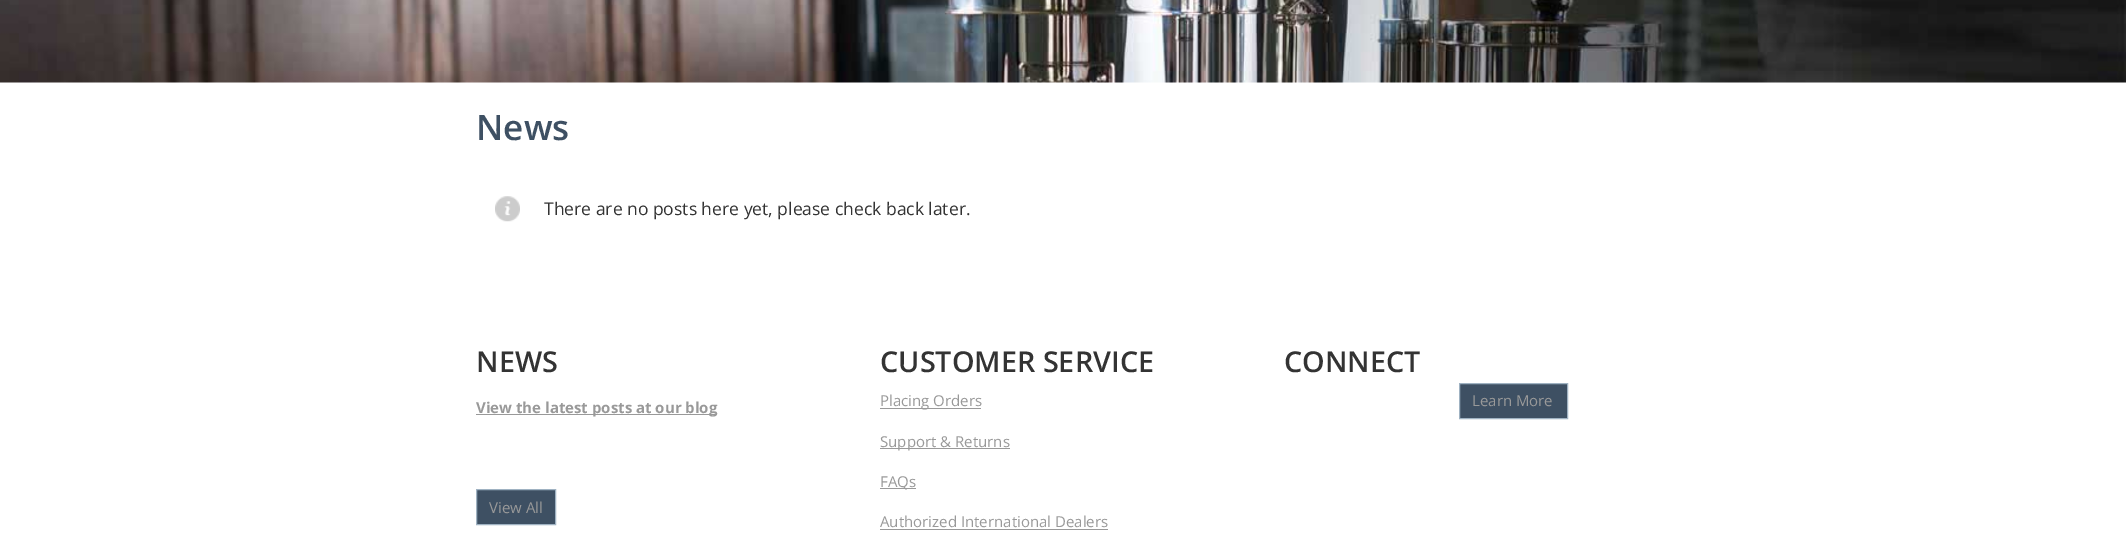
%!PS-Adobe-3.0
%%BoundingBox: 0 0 2126 542
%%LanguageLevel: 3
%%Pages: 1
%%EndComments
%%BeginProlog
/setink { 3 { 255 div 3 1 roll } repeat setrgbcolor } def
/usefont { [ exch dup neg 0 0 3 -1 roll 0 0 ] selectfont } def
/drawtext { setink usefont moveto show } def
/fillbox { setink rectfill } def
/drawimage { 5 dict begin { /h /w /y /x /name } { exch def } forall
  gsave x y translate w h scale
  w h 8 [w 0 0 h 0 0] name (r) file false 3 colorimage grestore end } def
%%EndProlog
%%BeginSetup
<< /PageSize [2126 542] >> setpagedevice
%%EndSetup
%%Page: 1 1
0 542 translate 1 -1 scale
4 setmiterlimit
0 0 2126 542 255 255 255 fillbox
(assets/img1.rgb) 0 0 2126 83 drawimage
(News) 476 140 /OpenSans-SemiBold 35 62 80 99 drawtext
(assets/img2.rgb) 495 196 25 26 drawimage
(There are no posts here yet, please check back later.) 544 215 /OpenSans-Regular 17.5 51 51 51 drawtext
(NEWS) 476 372 /OpenSans-SemiBold 28.75 51 51 51 drawtext
476 414 240 1 153 153 153 fillbox
(View the latest posts at our blog) 476 413 /OpenSans-Bold 15 153 153 153 drawtext
62 80 99 setink
476.5 489.5 moveto 555.5 489.5 lineto 555.5 524.5 lineto 476.5 524.5 lineto closepath gsave fill grestore
159 178 194 setink
stroke
(View All) 489 513 /OpenSans-Regular 15 153 153 153 drawtext
(CUSTOMER SERVICE) 880 372 /OpenSans-SemiBold 28.75 51 51 51 drawtext
880 408 101 1 153 153 153 fillbox
(Placing Orders) 880 406 /OpenSans-Regular 15 153 153 153 drawtext
880 448 130 1 153 153 153 fillbox
(Support & Returns) 880 447 /OpenSans-Regular 15 153 153 153 drawtext
880 488 36 1 153 153 153 fillbox
(FAQs) 880 487 /OpenSans-Regular 15 153 153 153 drawtext
(Authorized International Dealers) 880 527 /OpenSans-Regular 15 153 153 153 drawtext
880 529 228 1 153 153 153 fillbox
(CONNECT) 1284 372 /OpenSans-SemiBold 28.75 51 51 51 drawtext
62 80 99 setink
1459.5 383.5 moveto 1567.5 383.5 lineto 1567.5 418.5 lineto 1459.5 418.5 lineto closepath gsave fill grestore
159 178 194 setink
stroke
(Learn More) 1472 406 /OpenSans-Regular 15 153 153 153 drawtext
showpage
%%EOF
